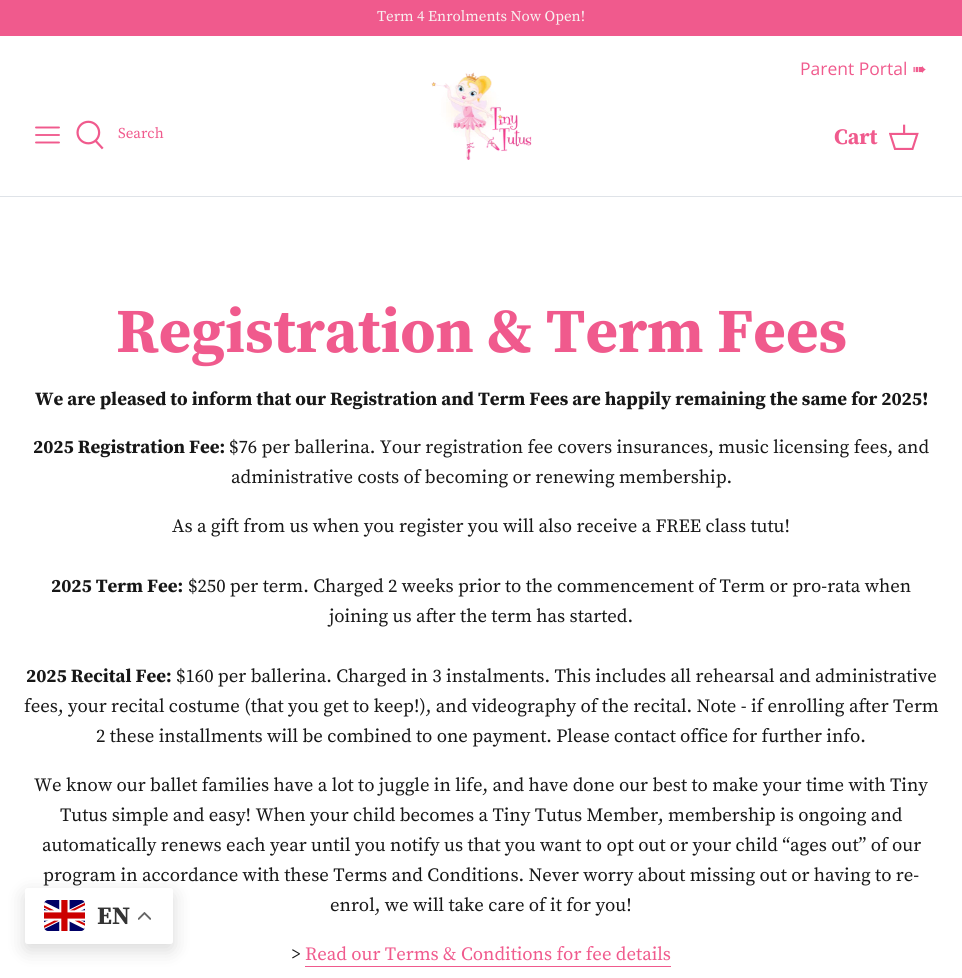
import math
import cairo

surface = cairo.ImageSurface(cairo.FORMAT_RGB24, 962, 978)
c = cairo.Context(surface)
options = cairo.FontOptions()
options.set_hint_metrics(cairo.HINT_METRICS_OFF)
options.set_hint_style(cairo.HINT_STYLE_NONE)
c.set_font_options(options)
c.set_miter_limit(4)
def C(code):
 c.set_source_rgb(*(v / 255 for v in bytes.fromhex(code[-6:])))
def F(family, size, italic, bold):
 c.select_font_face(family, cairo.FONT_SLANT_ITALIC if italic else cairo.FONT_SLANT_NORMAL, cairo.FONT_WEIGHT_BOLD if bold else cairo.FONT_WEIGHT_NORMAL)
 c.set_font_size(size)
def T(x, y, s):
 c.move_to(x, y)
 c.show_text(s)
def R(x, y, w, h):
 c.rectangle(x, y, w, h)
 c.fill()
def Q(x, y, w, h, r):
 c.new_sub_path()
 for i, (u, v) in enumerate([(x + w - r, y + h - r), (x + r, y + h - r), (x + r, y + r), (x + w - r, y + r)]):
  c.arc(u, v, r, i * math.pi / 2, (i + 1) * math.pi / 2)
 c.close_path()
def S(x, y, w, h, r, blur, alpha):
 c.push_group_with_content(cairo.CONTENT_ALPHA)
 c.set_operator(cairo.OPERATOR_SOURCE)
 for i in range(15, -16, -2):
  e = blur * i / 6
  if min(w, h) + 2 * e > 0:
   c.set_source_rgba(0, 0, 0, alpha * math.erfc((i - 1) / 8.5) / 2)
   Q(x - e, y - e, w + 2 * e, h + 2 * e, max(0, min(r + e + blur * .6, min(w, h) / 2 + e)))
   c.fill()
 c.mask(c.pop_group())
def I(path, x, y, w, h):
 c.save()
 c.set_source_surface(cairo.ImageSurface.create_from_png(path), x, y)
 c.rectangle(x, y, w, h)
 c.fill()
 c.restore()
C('ffffff')
c.paint()
C('f05a8d')
R(0,0,962,36)
F('Source Serif Pro',15,0,0)
C('f8f1f1')
T(377,21,'Term 4 Enrolments Now Open!')
C('dfe3e8')
R(0,196,962,1)
c.new_path()
c.move_to(36,135)
c.line_to(59,135)
c.move_to(36,127.5)
c.line_to(59,127.5)
c.move_to(36,142.5)
c.line_to(59,142.5)
C('f05a8d')
c.set_line_width(1.9)
c.set_line_cap(cairo.LINE_CAP_ROUND)
c.set_line_join(cairo.LINE_JOIN_ROUND)
c.stroke()
I('1.png',76,120,28,30)
T(118,138,'Search')
I('2.png',431,72,101,88)
F('Open Sans',17.5,0,0)
T(800,75,'Parent Portal')
F('DejaVu Sans',17.5,0,0)
T(912,75,'➠')
F('Source Serif Pro',22,0,1)
T(834,144,'Cart')
I('3.png',889,124,30,26)
F('Source Serif Pro',62.5,0,1)
T(116,352,'Registration & Term Fees')
F('Source Serif Pro',18.75,0,1)
C('171717')
T(35,405,'We are pleased to inform that our Registration and Term Fees are happily remaining the same for 2025!')
T(33,453,'2025 Registration Fee:')
F('Source Serif Pro',18.75,0,0)
T(229,453,'$76 per ballerina. Your registration fee covers insurances, music licensing fees, and')
T(231,483,'administrative costs of becoming or renewing membership.')
T(172,532,'As a gift from us when you register you will also receive a FREE class tutu!')
F('Source Serif Pro',18.75,0,1)
T(51,592,'2025 Term Fee:')
F('Source Serif Pro',18.75,0,0)
T(188,592,'$250 per term. Charged 2 weeks prior to the commencement of Term or pro-rata when')
T(329,622,'joining us after the term has started.')
F('Source Serif Pro',18.75,0,1)
T(26,682,'2025 Recital Fee:')
F('Source Serif Pro',18.75,0,0)
T(176,682,'$160 per ballerina. Charged in 3 instalments. This includes all rehearsal and administrative')
T(24,712,'fees, your recital costume (that you get to keep!), and videography of the recital. Note - if enrolling after Term')
T(96,742,'2 these installments will be combined to one payment. Please contact office for further info.')
T(34,791,'We know our ballet families have a lot to juggle in life, and have done our best to make your time with Tiny')
T(60,821,'Tutus simple and easy! When your child becomes a Tiny Tutus Member, membership is ongoing and')
T(42,851,'automatically renews each year until you notify us that you want to opt out or your child “ages out” of our')
T(43,881,'program in accordance with these Terms and Conditions. Never worry about missing out or having to re-')
T(330,911,'enrol, we will take care of it for you!')
T(291,960,'>')
C('f05a8d')
T(305,960,'Read our Terms & Conditions for fee details')
R(305,966,366,1)
C('000000')
S(25,894,148,56,2.5,9.5,.15)
C('ffffff')
Q(25,888,148,56,2.5)
c.fill()
I('4.png',44,900,41,31)
F('Source Serif Pro',25,0,1)
C('333333')
T(97,924,'EN')
I('5.png',138,912,13,8)
surface.write_to_png('o.png')
